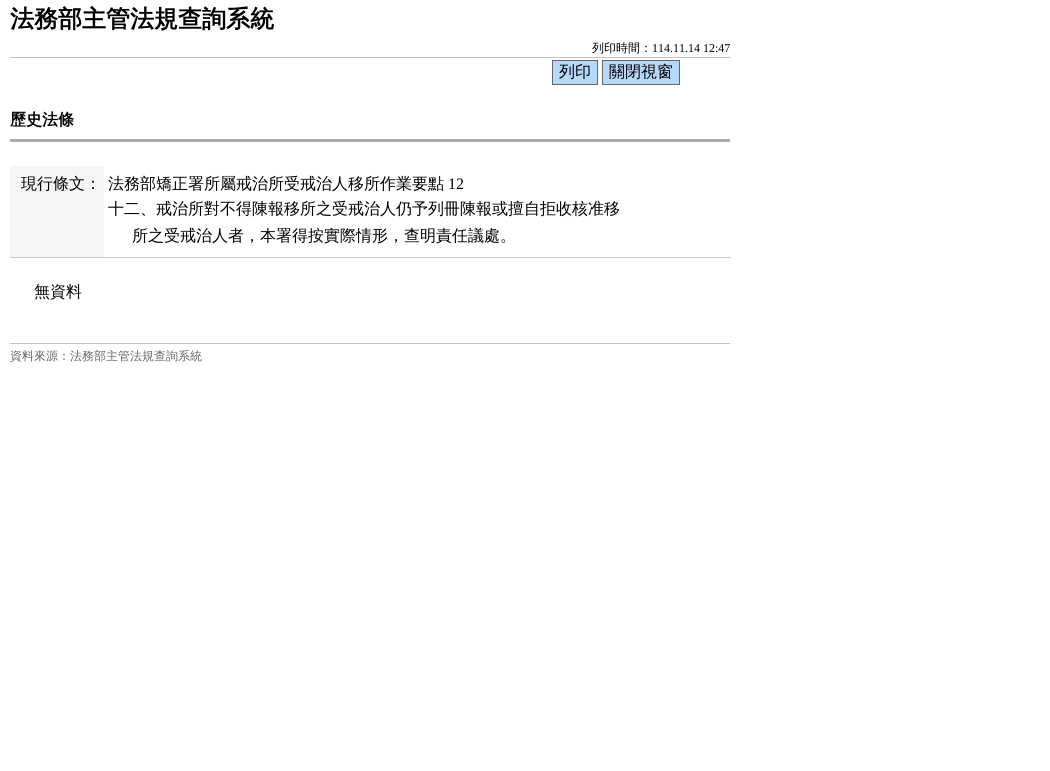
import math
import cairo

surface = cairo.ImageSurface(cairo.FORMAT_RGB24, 1050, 771)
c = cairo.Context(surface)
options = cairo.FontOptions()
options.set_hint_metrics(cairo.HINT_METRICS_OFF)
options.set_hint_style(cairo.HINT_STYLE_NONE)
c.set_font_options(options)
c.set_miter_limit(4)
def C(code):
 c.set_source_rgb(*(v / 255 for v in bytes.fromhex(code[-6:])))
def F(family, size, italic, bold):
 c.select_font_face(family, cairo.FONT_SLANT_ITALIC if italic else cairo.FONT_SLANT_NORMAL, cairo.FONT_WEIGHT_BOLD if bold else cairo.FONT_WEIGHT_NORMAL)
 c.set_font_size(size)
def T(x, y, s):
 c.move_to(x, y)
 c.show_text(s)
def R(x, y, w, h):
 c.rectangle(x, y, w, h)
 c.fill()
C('ffffff')
c.paint()
C('c0c0c0')
R(10,57,720,1)
F('WenQuanYi Zen Hei',24,0,1)
C('000000')
T(10,27,'法務部主管法規查詢系統')
F('WenQuanYi Zen Hei Medium',12,0,0)
T(592,52,'列印時間：')
F('Liberation Serif',12,0,0)
T(652,52,'114.11.14 12:47')
C('b5d8fb')
c.rectangle(552.5,60.5,45,24)
c.fill_preserve()
C('666666')
c.set_line_width(1)
c.stroke()
F('WenQuanYi Zen Hei Medium',16,0,0)
C('000000')
T(559,77,'列印')
C('b5d8fb')
c.rectangle(602.5,60.5,77,24)
c.fill_preserve()
C('666666')
c.stroke()
C('000000')
T(609,77,'關閉視窗')
C('aaaaaa')
R(10,139,720,3)
F('WenQuanYi Zen Hei',16,0,1)
C('000000')
T(10,125,'歷史法條')
C('f5f5f5')
R(10,166,94,91)
F('WenQuanYi Zen Hei Medium',16,0,0)
C('000000')
T(21,189,'現行條文：')
C('cccccc')
R(10,257,721,1)
C('000000')
T(108,189,'法務部矯正署所屬戒治所受戒治人移所作業要點')
F('Liberation Serif',16,0,0)
T(448,189,'12')
F('WenQuanYi Zen Hei Medium',16,0,0)
T(108,214,'十二、戒治所對不得陳報移所之受戒治人仍予列冊陳報或擅自拒收核准移')
T(132,241,'所之受戒治人者，本署得按實際情形，查明責任議處。')
T(34,297,'無資料')
C('c0c0c0')
R(10,343,720,1)
F('WenQuanYi Zen Hei Medium',12,0,0)
C('666666')
T(10,360,'資料來源：法務部主管法規查詢系統')
surface.write_to_png('o.png')
